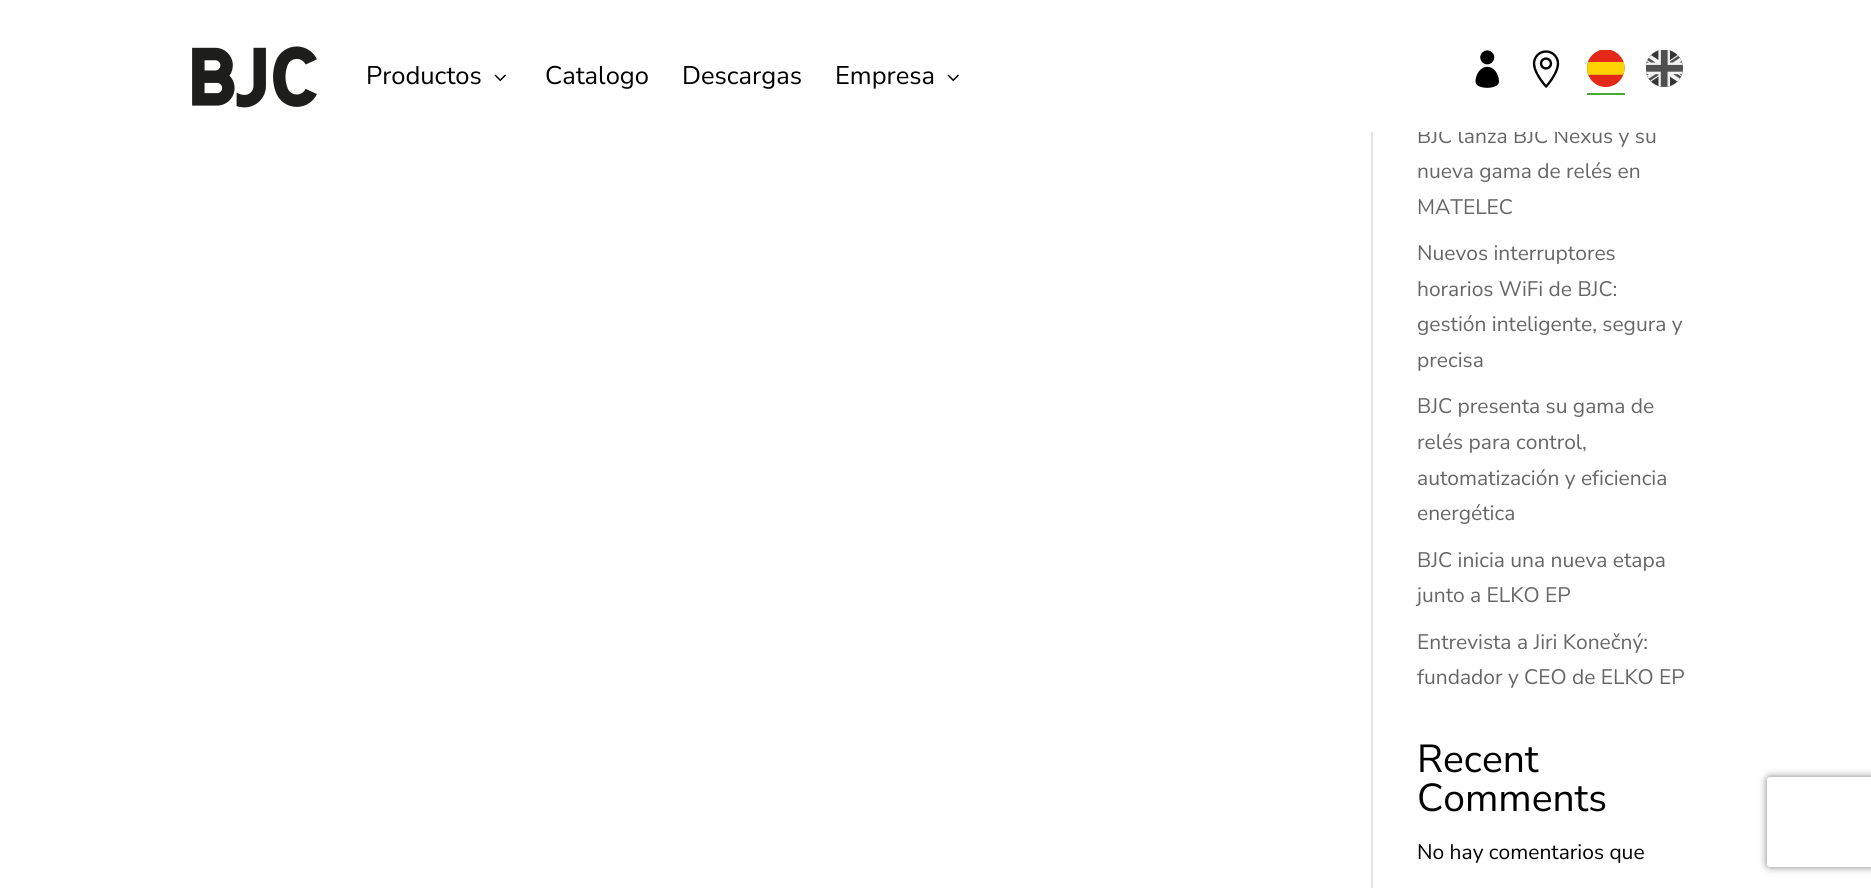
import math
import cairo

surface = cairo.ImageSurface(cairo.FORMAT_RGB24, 1871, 888)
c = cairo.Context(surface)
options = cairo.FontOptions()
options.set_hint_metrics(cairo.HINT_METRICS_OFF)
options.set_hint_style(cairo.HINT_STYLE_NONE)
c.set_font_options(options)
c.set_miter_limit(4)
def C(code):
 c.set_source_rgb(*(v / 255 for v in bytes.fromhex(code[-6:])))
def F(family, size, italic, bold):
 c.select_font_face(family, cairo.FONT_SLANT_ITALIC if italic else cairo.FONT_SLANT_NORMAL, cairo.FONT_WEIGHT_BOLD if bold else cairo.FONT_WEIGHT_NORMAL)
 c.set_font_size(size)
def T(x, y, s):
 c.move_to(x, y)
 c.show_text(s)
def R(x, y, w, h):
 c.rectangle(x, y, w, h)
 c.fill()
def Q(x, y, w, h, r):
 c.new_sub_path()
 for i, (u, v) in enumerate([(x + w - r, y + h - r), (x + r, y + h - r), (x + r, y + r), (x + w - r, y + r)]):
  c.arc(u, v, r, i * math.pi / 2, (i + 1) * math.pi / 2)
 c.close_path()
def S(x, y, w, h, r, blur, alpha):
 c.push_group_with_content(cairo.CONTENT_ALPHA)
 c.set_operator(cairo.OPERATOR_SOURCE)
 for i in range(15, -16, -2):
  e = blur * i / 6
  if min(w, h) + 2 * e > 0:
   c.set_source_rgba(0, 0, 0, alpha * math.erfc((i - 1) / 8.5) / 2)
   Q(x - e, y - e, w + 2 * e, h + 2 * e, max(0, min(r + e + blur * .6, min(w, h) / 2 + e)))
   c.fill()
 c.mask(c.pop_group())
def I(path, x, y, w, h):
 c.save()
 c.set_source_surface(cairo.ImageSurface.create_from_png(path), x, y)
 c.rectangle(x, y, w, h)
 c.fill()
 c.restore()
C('ffffff')
c.paint()
F('Nunito Sans',21,0,0)
C('666666')
T(1417,143,'BJC lanza BJC Nexus y su')
C('ffffff')
R(1418,128,150,4)
I('1.png',192,46,125,62)
F('Nunito Sans',25.5,0,0)
C('000000')
T(366,84,'Productos')
I('2.png',494,74,12,7)
T(545,84,'Catalogo')
T(682,84,'Descargas')
T(835,84,'Empresa')
I('2.png',947,74,12,7)
I('3.png',1475,50,24,38)
I('4.png',1532,50,28,38)
I('5.png',1587,50,38,37)
C('45ab34')
R(1587,93,38,2)
I('6.png',1646,50,37,37)
C('e2e2e2')
R(1371,132,2,756)
F('Nunito Sans',21,0,0)
C('666666')
T(1417,178,'nueva gama de relés en')
T(1417,214,'MATELEC')
T(1417,260,'Nuevos interruptores')
T(1417,296,'horarios WiFi de BJC:')
T(1417,331,'gestión inteligente, segura y')
T(1417,367,'precisa')
T(1417,413,'BJC presenta su gama de')
T(1417,449,'relés para control,')
T(1417,485,'automatización y eficiencia')
T(1417,520,'energética')
T(1417,567,'BJC inicia una nueva etapa')
T(1417,602,'junto a ELKO EP')
T(1417,649,'Entrevista a Jiri Konečný:')
T(1417,684,'fundador y CEO de ELKO EP')
F('Nunito Sans',39,0,0)
C('000000')
T(1417,772,'Recent')
T(1417,811,'Comments')
F('Nunito Sans',21,0,0)
T(1417,859,'No hay comentarios que')
c.save()
c.set_fill_rule(cairo.FILL_RULE_EVEN_ODD)
c.new_path()
c.move_to(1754,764)
c.line_to(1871,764)
c.line_to(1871,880)
c.line_to(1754,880)
c.close_path()
c.move_to(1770,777)
c.line_to(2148,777)
c.curve_to(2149.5,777,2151,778.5,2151,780)
c.line_to(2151,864)
c.curve_to(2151,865.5,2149.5,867,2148,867)
c.line_to(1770,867)
c.curve_to(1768.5,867,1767,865.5,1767,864)
c.line_to(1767,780)
c.curve_to(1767,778.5,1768.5,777,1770,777)
c.close_path()
c.clip()
C('808080')
S(1767,777,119,90,3,4,1)
c.restore()
surface.write_to_png('o.png')
